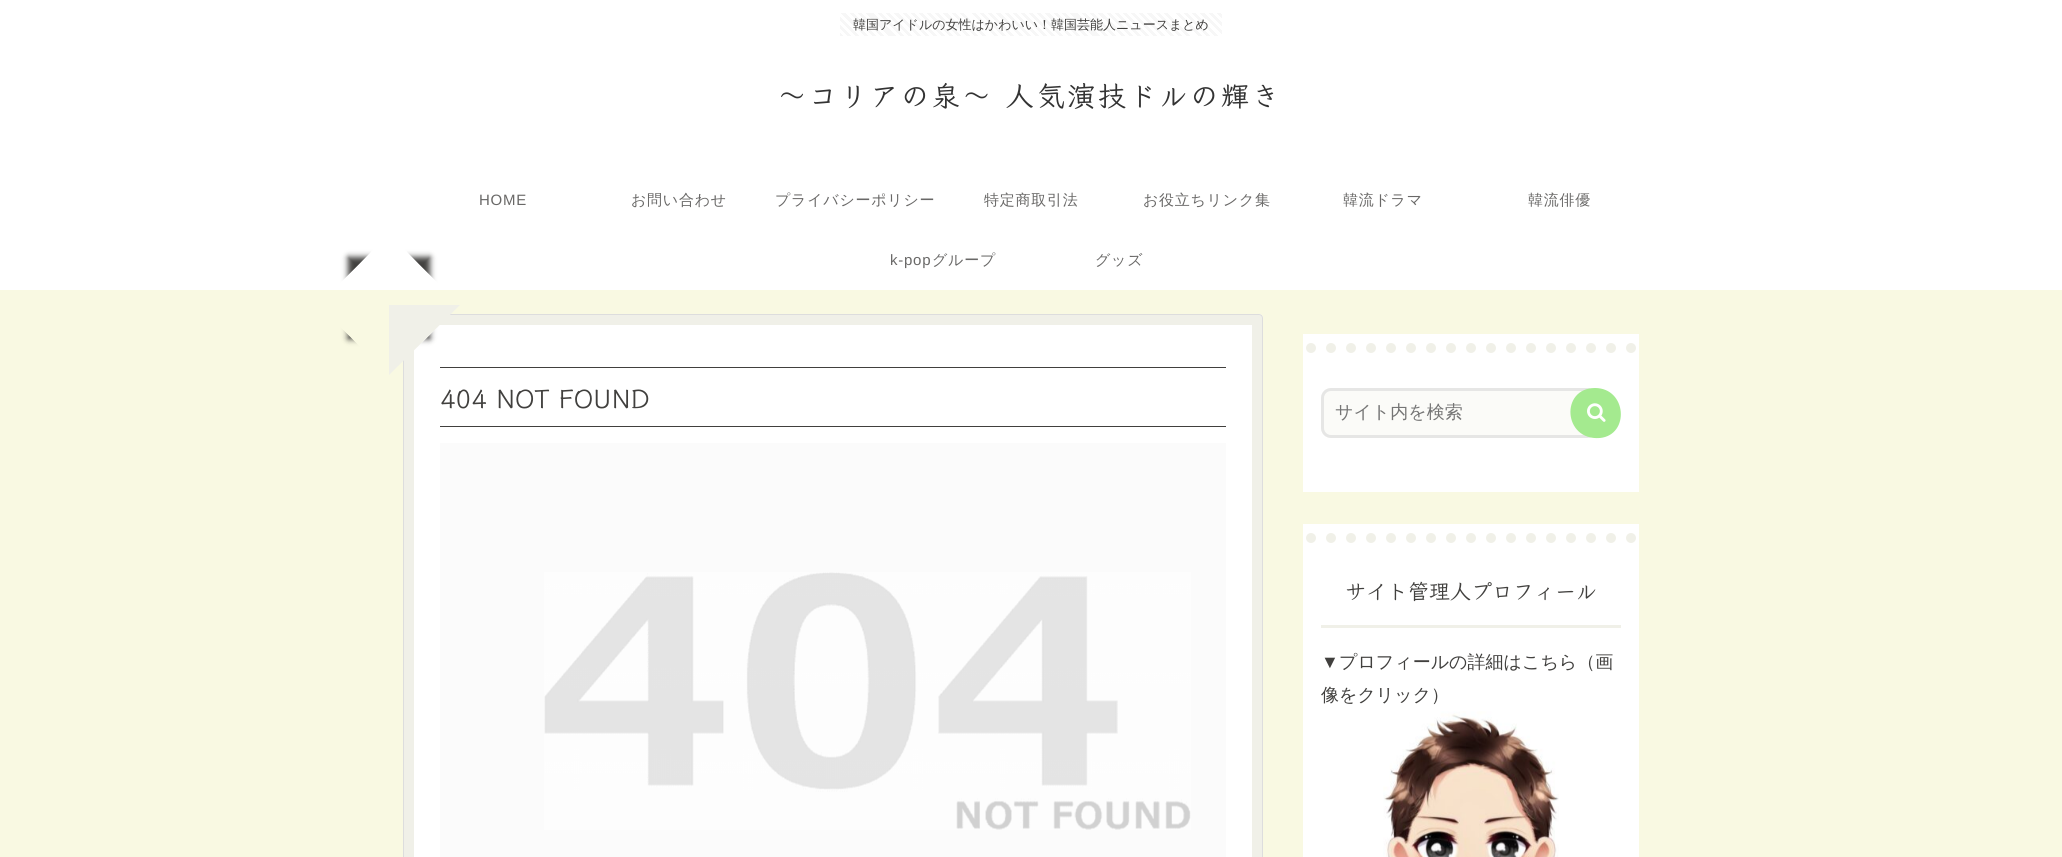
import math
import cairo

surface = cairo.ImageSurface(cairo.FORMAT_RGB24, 2062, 857)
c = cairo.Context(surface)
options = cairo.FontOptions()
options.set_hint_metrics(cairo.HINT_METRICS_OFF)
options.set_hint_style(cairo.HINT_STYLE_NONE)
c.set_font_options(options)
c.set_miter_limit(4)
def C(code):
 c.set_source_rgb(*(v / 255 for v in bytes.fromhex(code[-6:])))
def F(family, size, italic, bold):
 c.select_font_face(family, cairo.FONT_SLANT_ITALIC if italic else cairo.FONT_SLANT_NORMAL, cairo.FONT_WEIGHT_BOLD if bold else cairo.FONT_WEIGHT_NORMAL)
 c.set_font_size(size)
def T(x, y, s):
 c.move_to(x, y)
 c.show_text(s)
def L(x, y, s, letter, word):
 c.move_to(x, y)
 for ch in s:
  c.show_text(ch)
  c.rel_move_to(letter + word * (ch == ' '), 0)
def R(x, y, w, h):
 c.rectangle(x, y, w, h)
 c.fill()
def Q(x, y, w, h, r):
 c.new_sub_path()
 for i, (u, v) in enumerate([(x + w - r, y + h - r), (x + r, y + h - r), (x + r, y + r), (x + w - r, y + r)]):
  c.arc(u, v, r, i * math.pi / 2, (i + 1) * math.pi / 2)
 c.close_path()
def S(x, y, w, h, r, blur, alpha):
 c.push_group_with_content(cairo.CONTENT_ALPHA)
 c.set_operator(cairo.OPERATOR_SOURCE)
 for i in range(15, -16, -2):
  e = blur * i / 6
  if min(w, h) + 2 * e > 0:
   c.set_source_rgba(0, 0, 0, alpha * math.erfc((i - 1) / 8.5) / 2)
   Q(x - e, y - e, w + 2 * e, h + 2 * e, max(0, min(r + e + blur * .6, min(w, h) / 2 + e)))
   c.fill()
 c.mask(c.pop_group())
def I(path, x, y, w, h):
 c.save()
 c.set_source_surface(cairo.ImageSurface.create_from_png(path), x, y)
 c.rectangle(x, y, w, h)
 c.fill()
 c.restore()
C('f9f9e2')
c.paint()
C('ffffff')
R(0,0,2062,290)
gradient = cairo.LinearGradient(930,126,1133,-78)
gradient.add_color_stop_rgba(0,0.969,0.969,0.969,1)
gradient.add_color_stop_rgba(.01,0.969,0.969,0.969,1)
gradient.add_color_stop_rgba(.01,1,1,1,1)
gradient.add_color_stop_rgba(.02,1,1,1,1)
gradient.add_color_stop_rgba(.02,0.969,0.969,0.969,1)
gradient.add_color_stop_rgba(.03,0.969,0.969,0.969,1)
gradient.add_color_stop_rgba(.03,1,1,1,1)
gradient.add_color_stop_rgba(.04,1,1,1,1)
gradient.add_color_stop_rgba(.04,0.969,0.969,0.969,1)
gradient.add_color_stop_rgba(.05,0.969,0.969,0.969,1)
gradient.add_color_stop_rgba(.05,1,1,1,1)
gradient.add_color_stop_rgba(.06,1,1,1,1)
gradient.add_color_stop_rgba(.06,0.969,0.969,0.969,1)
gradient.add_color_stop_rgba(.07,0.969,0.969,0.969,1)
gradient.add_color_stop_rgba(.07,1,1,1,1)
gradient.add_color_stop_rgba(.08,1,1,1,1)
gradient.add_color_stop_rgba(.08,0.969,0.969,0.969,1)
gradient.add_color_stop_rgba(.09,0.969,0.969,0.969,1)
gradient.add_color_stop_rgba(.09,1,1,1,1)
gradient.add_color_stop_rgba(.1,1,1,1,1)
gradient.add_color_stop_rgba(.1,0.969,0.969,0.969,1)
gradient.add_color_stop_rgba(.11,0.969,0.969,0.969,1)
gradient.add_color_stop_rgba(.11,1,1,1,1)
gradient.add_color_stop_rgba(.12,1,1,1,1)
gradient.add_color_stop_rgba(.12,0.969,0.969,0.969,1)
gradient.add_color_stop_rgba(.14,0.969,0.969,0.969,1)
gradient.add_color_stop_rgba(.14,1,1,1,1)
gradient.add_color_stop_rgba(.15,1,1,1,1)
gradient.add_color_stop_rgba(.15,0.969,0.969,0.969,1)
gradient.add_color_stop_rgba(.16,0.969,0.969,0.969,1)
gradient.add_color_stop_rgba(.16,1,1,1,1)
gradient.add_color_stop_rgba(.17,1,1,1,1)
gradient.add_color_stop_rgba(.17,0.969,0.969,0.969,1)
gradient.add_color_stop_rgba(.18,0.969,0.969,0.969,1)
gradient.add_color_stop_rgba(.18,1,1,1,1)
gradient.add_color_stop_rgba(.19,1,1,1,1)
gradient.add_color_stop_rgba(.19,0.969,0.969,0.969,1)
gradient.add_color_stop_rgba(.2,0.969,0.969,0.969,1)
gradient.add_color_stop_rgba(.2,1,1,1,1)
gradient.add_color_stop_rgba(.21,1,1,1,1)
gradient.add_color_stop_rgba(.21,0.969,0.969,0.969,1)
gradient.add_color_stop_rgba(.22,0.969,0.969,0.969,1)
gradient.add_color_stop_rgba(.22,1,1,1,1)
gradient.add_color_stop_rgba(.23,1,1,1,1)
gradient.add_color_stop_rgba(.23,0.969,0.969,0.969,1)
gradient.add_color_stop_rgba(.24,0.969,0.969,0.969,1)
gradient.add_color_stop_rgba(.24,1,1,1,1)
gradient.add_color_stop_rgba(.25,1,1,1,1)
gradient.add_color_stop_rgba(.25,0.969,0.969,0.969,1)
gradient.add_color_stop_rgba(.26,0.969,0.969,0.969,1)
gradient.add_color_stop_rgba(.26,1,1,1,1)
gradient.add_color_stop_rgba(.27,1,1,1,1)
gradient.add_color_stop_rgba(.27,0.969,0.969,0.969,1)
gradient.add_color_stop_rgba(.28,0.969,0.969,0.969,1)
gradient.add_color_stop_rgba(.28,1,1,1,1)
gradient.add_color_stop_rgba(.29,1,1,1,1)
gradient.add_color_stop_rgba(.29,0.969,0.969,0.969,1)
gradient.add_color_stop_rgba(.3,0.969,0.969,0.969,1)
gradient.add_color_stop_rgba(.3,1,1,1,1)
gradient.add_color_stop_rgba(.31,1,1,1,1)
gradient.add_color_stop_rgba(.31,0.969,0.969,0.969,1)
gradient.add_color_stop_rgba(.32,0.969,0.969,0.969,1)
gradient.add_color_stop_rgba(.32,1,1,1,1)
gradient.add_color_stop_rgba(.33,1,1,1,1)
gradient.add_color_stop_rgba(.33,0.969,0.969,0.969,1)
gradient.add_color_stop_rgba(.34,0.969,0.969,0.969,1)
gradient.add_color_stop_rgba(.34,1,1,1,1)
gradient.add_color_stop_rgba(.35,1,1,1,1)
gradient.add_color_stop_rgba(.35,0.969,0.969,0.969,1)
gradient.add_color_stop_rgba(.36,0.969,0.969,0.969,1)
gradient.add_color_stop_rgba(.36,1,1,1,1)
gradient.add_color_stop_rgba(.38,1,1,1,1)
gradient.add_color_stop_rgba(.38,0.969,0.969,0.969,1)
gradient.add_color_stop_rgba(.39,0.969,0.969,0.969,1)
gradient.add_color_stop_rgba(.39,1,1,1,1)
gradient.add_color_stop_rgba(.4,1,1,1,1)
gradient.add_color_stop_rgba(.4,0.969,0.969,0.969,1)
gradient.add_color_stop_rgba(.41,0.969,0.969,0.969,1)
gradient.add_color_stop_rgba(.41,1,1,1,1)
gradient.add_color_stop_rgba(.42,1,1,1,1)
gradient.add_color_stop_rgba(.42,0.969,0.969,0.969,1)
gradient.add_color_stop_rgba(.43,0.969,0.969,0.969,1)
gradient.add_color_stop_rgba(.43,1,1,1,1)
gradient.add_color_stop_rgba(.44,1,1,1,1)
gradient.add_color_stop_rgba(.44,0.969,0.969,0.969,1)
gradient.add_color_stop_rgba(.45,0.969,0.969,0.969,1)
gradient.add_color_stop_rgba(.45,1,1,1,1)
gradient.add_color_stop_rgba(.46,1,1,1,1)
gradient.add_color_stop_rgba(.46,0.969,0.969,0.969,1)
gradient.add_color_stop_rgba(.47,0.969,0.969,0.969,1)
gradient.add_color_stop_rgba(.47,1,1,1,1)
gradient.add_color_stop_rgba(.48,1,1,1,1)
gradient.add_color_stop_rgba(.48,0.969,0.969,0.969,1)
gradient.add_color_stop_rgba(.49,0.969,0.969,0.969,1)
gradient.add_color_stop_rgba(.49,1,1,1,1)
gradient.add_color_stop_rgba(.5,1,1,1,1)
gradient.add_color_stop_rgba(.5,0.969,0.969,0.969,1)
gradient.add_color_stop_rgba(.51,0.969,0.969,0.969,1)
gradient.add_color_stop_rgba(.51,1,1,1,1)
gradient.add_color_stop_rgba(.52,1,1,1,1)
gradient.add_color_stop_rgba(.52,0.969,0.969,0.969,1)
gradient.add_color_stop_rgba(.53,0.969,0.969,0.969,1)
gradient.add_color_stop_rgba(.53,1,1,1,1)
gradient.add_color_stop_rgba(.54,1,1,1,1)
gradient.add_color_stop_rgba(.54,0.969,0.969,0.969,1)
gradient.add_color_stop_rgba(.55,0.969,0.969,0.969,1)
gradient.add_color_stop_rgba(.55,1,1,1,1)
gradient.add_color_stop_rgba(.56,1,1,1,1)
gradient.add_color_stop_rgba(.56,0.969,0.969,0.969,1)
gradient.add_color_stop_rgba(.57,0.969,0.969,0.969,1)
gradient.add_color_stop_rgba(.57,1,1,1,1)
gradient.add_color_stop_rgba(.58,1,1,1,1)
gradient.add_color_stop_rgba(.58,0.969,0.969,0.969,1)
gradient.add_color_stop_rgba(.59,0.969,0.969,0.969,1)
gradient.add_color_stop_rgba(.59,1,1,1,1)
gradient.add_color_stop_rgba(.6,1,1,1,1)
gradient.add_color_stop_rgba(.6,0.969,0.969,0.969,1)
gradient.add_color_stop_rgba(.61,0.969,0.969,0.969,1)
gradient.add_color_stop_rgba(.61,1,1,1,1)
gradient.add_color_stop_rgba(.62,1,1,1,1)
gradient.add_color_stop_rgba(.62,0.969,0.969,0.969,1)
gradient.add_color_stop_rgba(.64,0.969,0.969,0.969,1)
gradient.add_color_stop_rgba(.64,1,1,1,1)
gradient.add_color_stop_rgba(.65,1,1,1,1)
gradient.add_color_stop_rgba(.65,0.969,0.969,0.969,1)
gradient.add_color_stop_rgba(.66,0.969,0.969,0.969,1)
gradient.add_color_stop_rgba(.66,1,1,1,1)
gradient.add_color_stop_rgba(.67,1,1,1,1)
gradient.add_color_stop_rgba(.67,0.969,0.969,0.969,1)
gradient.add_color_stop_rgba(.68,0.969,0.969,0.969,1)
gradient.add_color_stop_rgba(.68,1,1,1,1)
gradient.add_color_stop_rgba(.69,1,1,1,1)
gradient.add_color_stop_rgba(.69,0.969,0.969,0.969,1)
gradient.add_color_stop_rgba(.7,0.969,0.969,0.969,1)
gradient.add_color_stop_rgba(.7,1,1,1,1)
gradient.add_color_stop_rgba(.71,1,1,1,1)
gradient.add_color_stop_rgba(.71,0.969,0.969,0.969,1)
gradient.add_color_stop_rgba(.72,0.969,0.969,0.969,1)
gradient.add_color_stop_rgba(.72,1,1,1,1)
gradient.add_color_stop_rgba(.73,1,1,1,1)
gradient.add_color_stop_rgba(.73,0.969,0.969,0.969,1)
gradient.add_color_stop_rgba(.74,0.969,0.969,0.969,1)
gradient.add_color_stop_rgba(.74,1,1,1,1)
gradient.add_color_stop_rgba(.75,1,1,1,1)
gradient.add_color_stop_rgba(.75,0.969,0.969,0.969,1)
gradient.add_color_stop_rgba(.76,0.969,0.969,0.969,1)
gradient.add_color_stop_rgba(.76,1,1,1,1)
gradient.add_color_stop_rgba(.77,1,1,1,1)
gradient.add_color_stop_rgba(.77,0.969,0.969,0.969,1)
gradient.add_color_stop_rgba(.78,0.969,0.969,0.969,1)
gradient.add_color_stop_rgba(.78,1,1,1,1)
gradient.add_color_stop_rgba(.79,1,1,1,1)
gradient.add_color_stop_rgba(.79,0.969,0.969,0.969,1)
gradient.add_color_stop_rgba(.8,0.969,0.969,0.969,1)
gradient.add_color_stop_rgba(.8,1,1,1,1)
gradient.add_color_stop_rgba(.81,1,1,1,1)
gradient.add_color_stop_rgba(.81,0.969,0.969,0.969,1)
gradient.add_color_stop_rgba(.82,0.969,0.969,0.969,1)
gradient.add_color_stop_rgba(.82,1,1,1,1)
gradient.add_color_stop_rgba(.83,1,1,1,1)
gradient.add_color_stop_rgba(.83,0.969,0.969,0.969,1)
gradient.add_color_stop_rgba(.84,0.969,0.969,0.969,1)
gradient.add_color_stop_rgba(.84,1,1,1,1)
gradient.add_color_stop_rgba(.85,1,1,1,1)
gradient.add_color_stop_rgba(.85,0.969,0.969,0.969,1)
gradient.add_color_stop_rgba(.86,0.969,0.969,0.969,1)
gradient.add_color_stop_rgba(.86,1,1,1,1)
gradient.add_color_stop_rgba(.88,1,1,1,1)
gradient.add_color_stop_rgba(.88,0.969,0.969,0.969,1)
gradient.add_color_stop_rgba(.89,0.969,0.969,0.969,1)
gradient.add_color_stop_rgba(.89,1,1,1,1)
gradient.add_color_stop_rgba(.9,1,1,1,1)
gradient.add_color_stop_rgba(.9,0.969,0.969,0.969,1)
gradient.add_color_stop_rgba(.91,0.969,0.969,0.969,1)
gradient.add_color_stop_rgba(.91,1,1,1,1)
gradient.add_color_stop_rgba(.92,1,1,1,1)
gradient.add_color_stop_rgba(.92,0.969,0.969,0.969,1)
gradient.add_color_stop_rgba(.93,0.969,0.969,0.969,1)
gradient.add_color_stop_rgba(.93,1,1,1,1)
gradient.add_color_stop_rgba(.94,1,1,1,1)
gradient.add_color_stop_rgba(.94,0.969,0.969,0.969,1)
gradient.add_color_stop_rgba(.95,0.969,0.969,0.969,1)
gradient.add_color_stop_rgba(.95,1,1,1,1)
gradient.add_color_stop_rgba(.96,1,1,1,1)
gradient.add_color_stop_rgba(.96,0.969,0.969,0.969,1)
gradient.add_color_stop_rgba(.97,0.969,0.969,0.969,1)
gradient.add_color_stop_rgba(.97,1,1,1,1)
gradient.add_color_stop_rgba(.98,1,1,1,1)
gradient.add_color_stop_rgba(.98,0.969,0.969,0.969,1)
gradient.add_color_stop_rgba(.99,0.969,0.969,0.969,1)
gradient.add_color_stop_rgba(.99,1,1,1,1)
gradient.add_color_stop_rgba(1,1,1,1,1)
c.set_source(gradient)
R(840,13,382,23)
F('WenQuanYi Zen Hei Medium',13,0,0)
C('41403e')
T(853,29,'韓国アイドルの女性はかわいい！韓国芸能人ニュースまとめ')
F('Klee One SemiBold',28,0,0)
C('333333')
L(778,106,'～コリアの泉～ 人気演技ドルの輝き',2.75,0)
F('Liberation Sans',15,0,0)
C('696867')
L(479,205,'HOME',.75,0)
F('WenQuanYi Zen Hei Medium',15,0,0)
L(631,205,'お問い合わせ',.75,0)
L(775,205,'プライバシーポリシー',.75,0)
L(984,205,'特定商取引法',.75,0)
L(1143,205,'お役立ちリンク集',.75,0)
L(1343,205,'韓流ドラマ',.75,0)
L(1528,205,'韓流俳優',.75,0)
F('Liberation Sans',15,0,0)
L(890,265,'k-pop',.75,0)
F('WenQuanYi Zen Hei Medium',15,0,0)
L(932,265,'グループ',.75,0)
L(1095,265,'グッズ',.75,0)
C('ffffff')
Q(403,314,860,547,4)
c.fill()
c.new_path()
c.move_to(409,320)
c.line_to(1257,320)
c.line_to(1257,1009)
c.line_to(409,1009)
c.close_path()
C('f0f0e8')
c.set_line_width(10)
c.stroke()
Q(403.5,314.5,859,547,3.5)
C('dddddd')
c.set_line_width(1)
c.stroke()
c.save()
c.set_fill_rule(cairo.FILL_RULE_EVEN_ODD)
c.new_path()
c.move_to(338,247)
c.line_to(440,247)
c.line_to(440,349)
c.line_to(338,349)
c.close_path()
c.move_to(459.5,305)
c.line_to(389,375.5)
c.line_to(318.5,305)
c.line_to(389,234)
c.close_path()
c.clip()
C('41403e')
S(348,257,82,82,0,3,1)
c.restore()
C('41403e')
R(440,367,786,1)
C('f0f0e8')
c.new_path()
c.move_to(460,305)
c.line_to(389,375)
c.line_to(389,305)
c.close_path()
c.fill()
C('41403e')
R(440,426,786,1)
F('Klee One SemiBold',26,0,0)
T(440,408,'404 NOT FOUND')
C('fbfbfb')
R(440,443,786,414)
I('1.png',544,572,647,258)
C('ffffff')
R(1303,334,336,158)
c.new_path()
c.move_to(1311,348)
c.line_to(1631,348)
C('f0f0e8')
c.set_line_width(10)
c.set_line_cap(cairo.LINE_CAP_ROUND)
c.set_dash([0,20])
c.stroke()
C('fbfbf8')
Q(1321,388,276,50,10)
c.fill()
Q(1322.5,389.5,273,47,8.5)
c.set_source_rgba(0.867,0.867,0.867,0.7)
c.set_line_width(3)
c.set_line_cap(cairo.LINE_CAP_BUTT)
c.set_dash([])
c.stroke()
F('WenQuanYi Zen Hei Medium',18,0,0)
C('757575')
T(1335,418,'サイト内を検索')
C('a4ea8f')
c.new_path()
c.move_to(1595,388)
c.curve_to(1627,388,1630,435,1600,438)
c.curve_to(1563,441,1560,388,1595,388)
c.close_path()
c.fill()
I('2.png',1587,403,19,19)
C('ffffff')
R(1303,524,336,333)
c.new_path()
c.move_to(1311,538)
c.line_to(1631,538)
C('f0f0e8')
c.set_line_width(10)
c.set_line_cap(cairo.LINE_CAP_ROUND)
c.set_dash([0,20])
c.stroke()
R(1321,625,300,3)
F('Klee One SemiBold',21,0,0)
C('41403e')
T(1345,599,'サイト管理人プロフィール')
F('Liberation Sans',18,0,0)
T(1321,668,'▼')
F('WenQuanYi Zen Hei Medium',18,0,0)
T(1339,668,'プロフィールの詳細はこちら（画')
T(1321,701,'像をクリック）')
I('3.png',1383,711,176,146)
surface.write_to_png('o.png')
